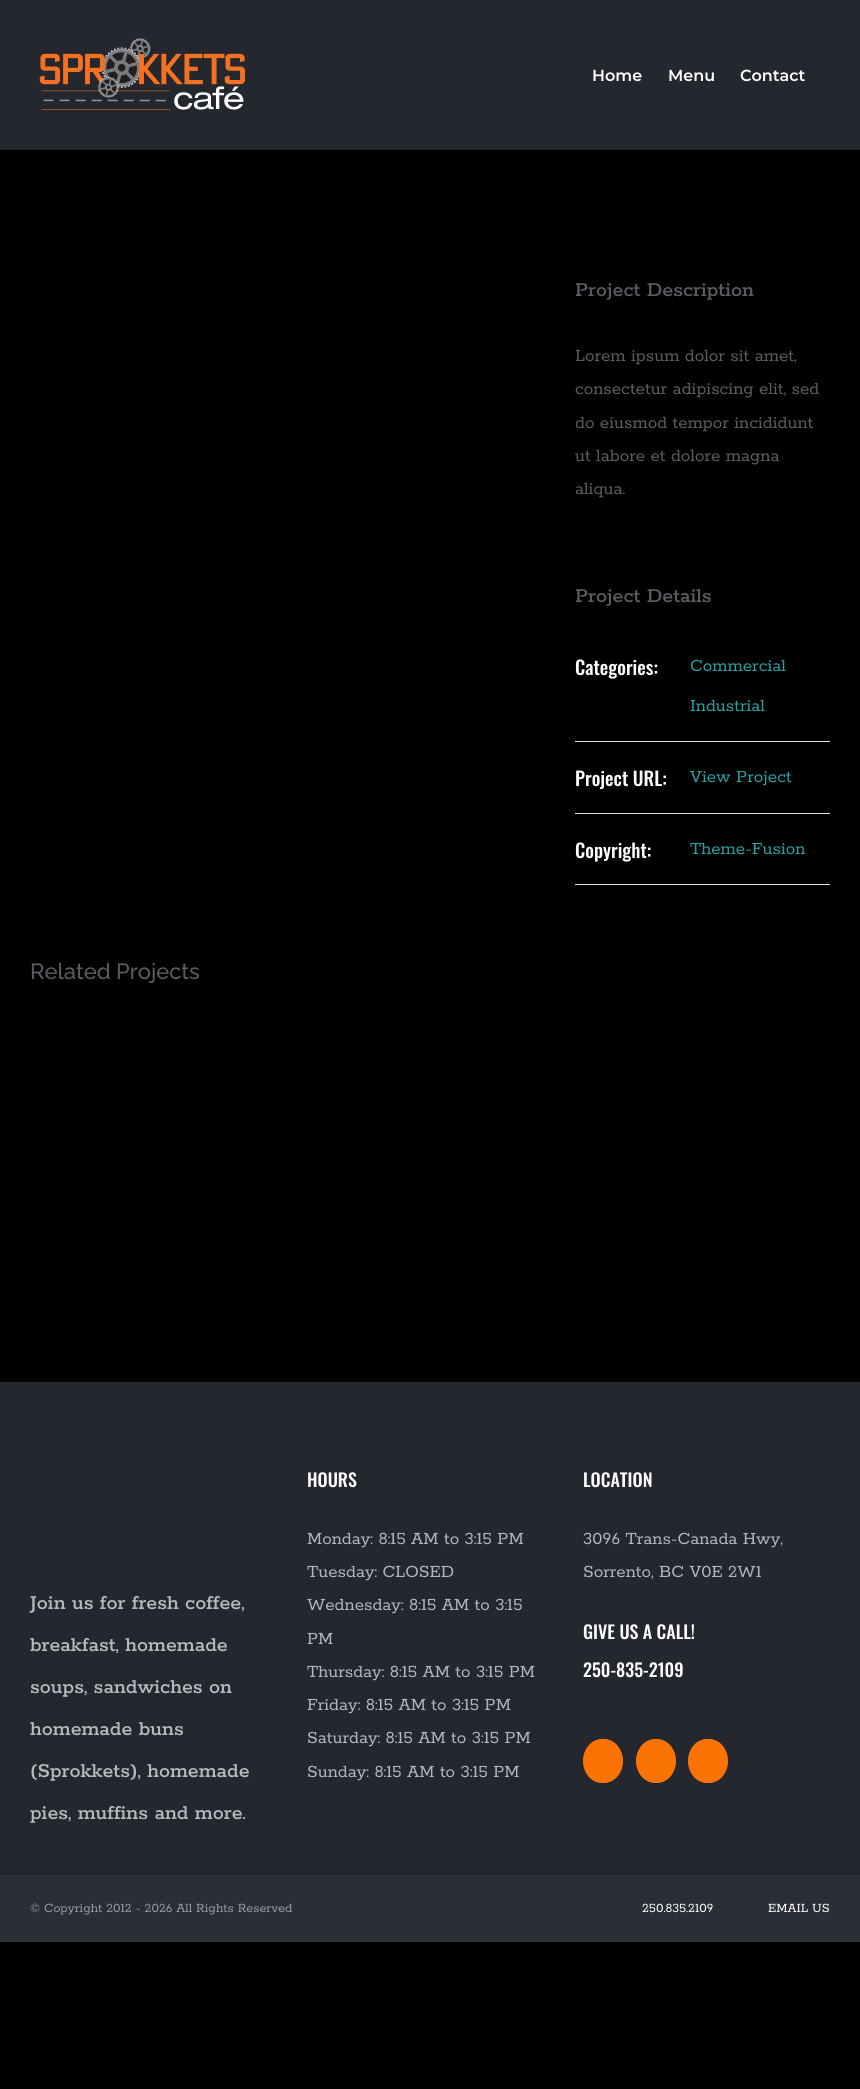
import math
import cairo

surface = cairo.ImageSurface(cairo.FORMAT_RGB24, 860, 2089)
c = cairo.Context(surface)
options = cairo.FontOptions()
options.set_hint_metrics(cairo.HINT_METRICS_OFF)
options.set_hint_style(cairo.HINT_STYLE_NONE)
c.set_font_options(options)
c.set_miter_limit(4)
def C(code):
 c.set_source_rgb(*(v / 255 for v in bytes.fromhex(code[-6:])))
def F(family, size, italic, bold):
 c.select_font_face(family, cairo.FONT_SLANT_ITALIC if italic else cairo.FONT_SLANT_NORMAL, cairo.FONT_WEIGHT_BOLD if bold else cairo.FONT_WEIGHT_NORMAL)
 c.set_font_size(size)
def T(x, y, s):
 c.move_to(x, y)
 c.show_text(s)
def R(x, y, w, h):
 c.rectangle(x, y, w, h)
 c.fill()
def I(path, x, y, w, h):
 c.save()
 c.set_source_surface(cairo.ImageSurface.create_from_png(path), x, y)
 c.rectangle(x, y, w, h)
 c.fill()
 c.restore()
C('000000')
c.paint()
C('24272d')
R(0,0,860,150)
I('1.png',39,38,206,72)
F('Montserrat Thin',16,0,0)
C('ffffff')
T(592,81,'Home')
T(668,81,'Menu')
T(740,81,'Contact')
F('Rokkitt SemiBold',22,0,0)
C('5a5d62')
T(575,296,'Project Description')
F('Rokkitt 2 SemiBold',19,0,0)
T(575,361,'Lorem ipsum dolor sit amet,')
T(575,394,'consectetur adipiscing elit, sed')
T(575,428,'do eiusmod tempor incididunt')
T(575,461,'ut labore et dolore magna')
T(575,494,'aliqua.')
F('Rokkitt SemiBold',22,0,0)
T(575,602,'Project Details')
C('e0dede')
R(575,741,255,1)
F('Oswald Medium',19,0,0)
C('ffffff')
T(575,675,'Categories:')
F('Rokkitt 2 SemiBold',19,0,0)
C('2ba0a3')
T(690,671,'Commercial')
T(690,711,'Industrial')
C('e0dede')
R(575,813,255,1)
F('Oswald Medium',19,0,0)
C('ffffff')
T(575,786,'Project URL:')
F('Rokkitt 2 SemiBold',19,0,0)
C('2ba0a3')
T(690,782,'View Project')
C('e0dede')
R(575,884,255,1)
F('Oswald Medium',19,0,0)
C('ffffff')
T(575,858,'Copyright:')
F('Rokkitt 2 SemiBold',19,0,0)
C('2ba0a3')
T(690,854,'Theme-Fusion')
F('Raleway Thin',22,0,0)
C('5a5d62')
T(30,979,'Related Projects')
C('24272d')
R(0,1382,860,493)
F('Rokkitt SemiBold',22,0,0)
C('b7b9bb')
T(30,1609,'Join us for fresh coffee,')
T(30,1651,'breakfast, homemade')
T(30,1693,'soups, sandwiches on')
T(30,1735,'homemade buns')
T(30,1777,'(Sprokkets), homemade')
T(30,1819,'pies, muffins and more.')
F('Oswald Medium',18,0,0)
C('ffffff')
T(307,1487,'HOURS')
F('Rokkitt 2 SemiBold',19,0,0)
C('afb8bc')
T(307,1544,'Monday: 8:15 AM to 3:15 PM')
T(307,1577,'Tuesday: CLOSED')
T(307,1610,'Wednesday: 8:15 AM to 3:15')
T(307,1644,'PM')
T(307,1677,'Thursday: 8:15 AM to 3:15 PM')
T(307,1710,'Friday: 8:15 AM to 3:15 PM')
T(307,1743,'Saturday: 8:15 AM to 3:15 PM')
T(307,1777,'Sunday: 8:15 AM to 3:15 PM')
F('Oswald Medium',18,0,0)
C('ffffff')
T(583,1487,'LOCATION')
F('Rokkitt 2 SemiBold',19,0,0)
C('afb8bc')
T(583,1544,'3096 Trans-Canada Hwy,')
T(583,1577,'Sorrento, BC V0E 2W1')
F('Oswald Medium',18,0,0)
C('ffffff')
T(583,1639,'GIVE US A CALL!')
T(583,1677,'250-835-2109')
C('fc7305')
c.new_path()
c.move_to(603,1739)
c.curve_to(614,1739,623,1749,623,1761)
c.curve_to(623,1773,614,1783,603,1783)
c.curve_to(592,1783,583,1773,583,1761)
c.curve_to(583,1749,592,1739,603,1739)
c.close_path()
c.fill()
c.new_path()
c.move_to(603,1739.5)
c.curve_to(628.5,1739.5,628.5,1782.5,603,1782.5)
c.curve_to(577.5,1782.5,577.5,1739.5,603,1739.5)
c.close_path()
c.set_line_width(1)
c.stroke()
c.new_path()
c.move_to(656,1739)
c.curve_to(667,1739,676,1749,676,1761)
c.curve_to(676,1773,667,1783,656,1783)
c.curve_to(645,1783,636,1773,636,1761)
c.curve_to(636,1749,645,1739,656,1739)
c.close_path()
c.fill()
c.new_path()
c.move_to(656,1739.5)
c.curve_to(681.5,1739.5,681.5,1782.5,656,1782.5)
c.curve_to(630.5,1782.5,630.5,1739.5,656,1739.5)
c.close_path()
c.stroke()
c.new_path()
c.move_to(708,1739)
c.curve_to(719,1739,728,1749,728,1761)
c.curve_to(728,1773,719,1783,708,1783)
c.curve_to(697,1783,688,1773,688,1761)
c.curve_to(688,1749,697,1739,708,1739)
c.close_path()
c.fill()
c.new_path()
c.move_to(708,1739.5)
c.curve_to(733.5,1739.5,733.5,1782.5,708,1782.5)
c.curve_to(682.5,1782.5,682.5,1739.5,708,1739.5)
c.close_path()
c.stroke()
C('2b2e35')
R(0,1875,860,67)
F('Rokkitt 2 SemiBold',14,0,0)
C('959da0')
T(30,1912,'© Copyright 2012 - 2026 All Rights Reserved')
C('ffffff')
T(642,1912,'250.835.2109')
T(768,1912,'EMAIL US')
surface.write_to_png('o.png')
